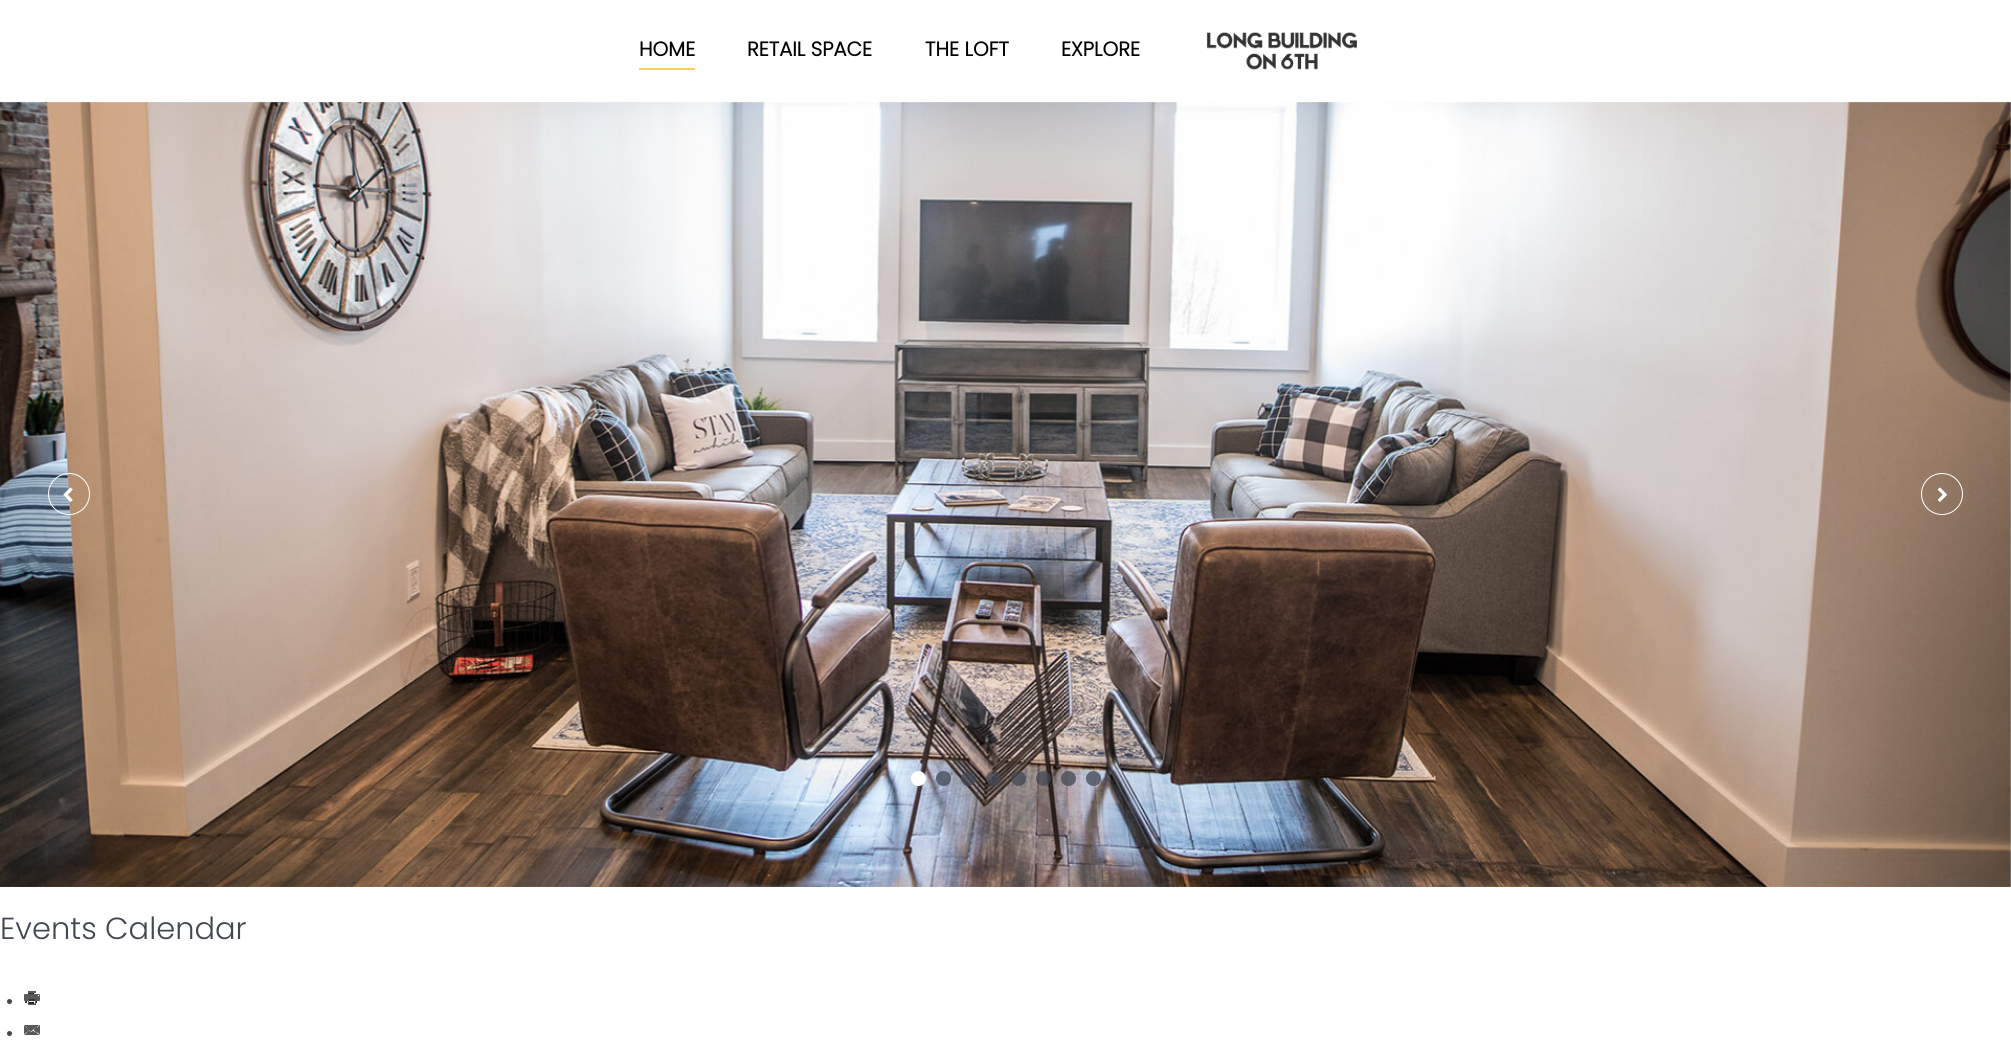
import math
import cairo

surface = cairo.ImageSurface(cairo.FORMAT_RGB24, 2011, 1043)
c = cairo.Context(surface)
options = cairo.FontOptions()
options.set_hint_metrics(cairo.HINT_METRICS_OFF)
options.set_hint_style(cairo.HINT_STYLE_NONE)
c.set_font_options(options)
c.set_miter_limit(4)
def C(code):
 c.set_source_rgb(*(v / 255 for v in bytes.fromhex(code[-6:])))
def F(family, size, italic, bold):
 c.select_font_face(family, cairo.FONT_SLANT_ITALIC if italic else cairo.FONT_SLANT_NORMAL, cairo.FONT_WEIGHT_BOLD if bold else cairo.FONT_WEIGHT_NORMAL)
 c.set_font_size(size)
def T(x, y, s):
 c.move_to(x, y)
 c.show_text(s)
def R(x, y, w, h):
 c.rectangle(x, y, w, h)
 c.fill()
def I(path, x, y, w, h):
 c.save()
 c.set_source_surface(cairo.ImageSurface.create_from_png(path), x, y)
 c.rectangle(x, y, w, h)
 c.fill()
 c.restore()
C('ffffff')
c.paint()
C('fad155')
R(639,68,56,2)
F('Poppins',20,0,1)
C('000000')
T(639,56,'HOME')
T(747,56,'RETAIL SPACE')
T(925,56,'THE LOFT')
T(1061,56,'EXPLORE')
I('1.png',1207,32,150,38)
I('2.png',0,102,2011,785)
c.arc(69,494,20.5,0,2 * math.pi)
C('ffffff')
c.set_line_width(1)
c.stroke()
I('3.png',63,487,10,15)
c.arc(1942,494,20.5,0,2 * math.pi)
c.stroke()
I('4.png',1937,487,10,15)
c.arc(918.5,778.5,7.5,0,2 * math.pi)
c.fill()
c.set_source_rgba(0.259,0.278,0.325,0.75)
c.arc(943.5,778.5,7.5,0,2 * math.pi)
c.fill()
c.arc(968.5,778.5,7.5,0,2 * math.pi)
c.fill()
c.arc(993.5,778.5,7.5,0,2 * math.pi)
c.fill()
c.arc(1018.5,778.5,7.5,0,2 * math.pi)
c.fill()
c.arc(1043.5,778.5,7.5,0,2 * math.pi)
c.fill()
c.arc(1068.5,778.5,7.5,0,2 * math.pi)
c.fill()
c.arc(1093.5,778.5,7.5,0,2 * math.pi)
c.fill()
F('Poppins Light',30.5,0,0)
C('424753')
T(0,939,'Events Calendar')
c.new_path()
c.arc(9.5,1001.5,2.5,0,2 * math.pi)
c.fill()
I('5.png',25,993,12,11)
I('6.png',24,991,16,14)
c.arc(9.5,1033.5,2.5,0,2 * math.pi)
c.fill()
I('7.png',25,1025,12,10)
I('8.png',24,1025,16,10)
surface.write_to_png('o.png')
